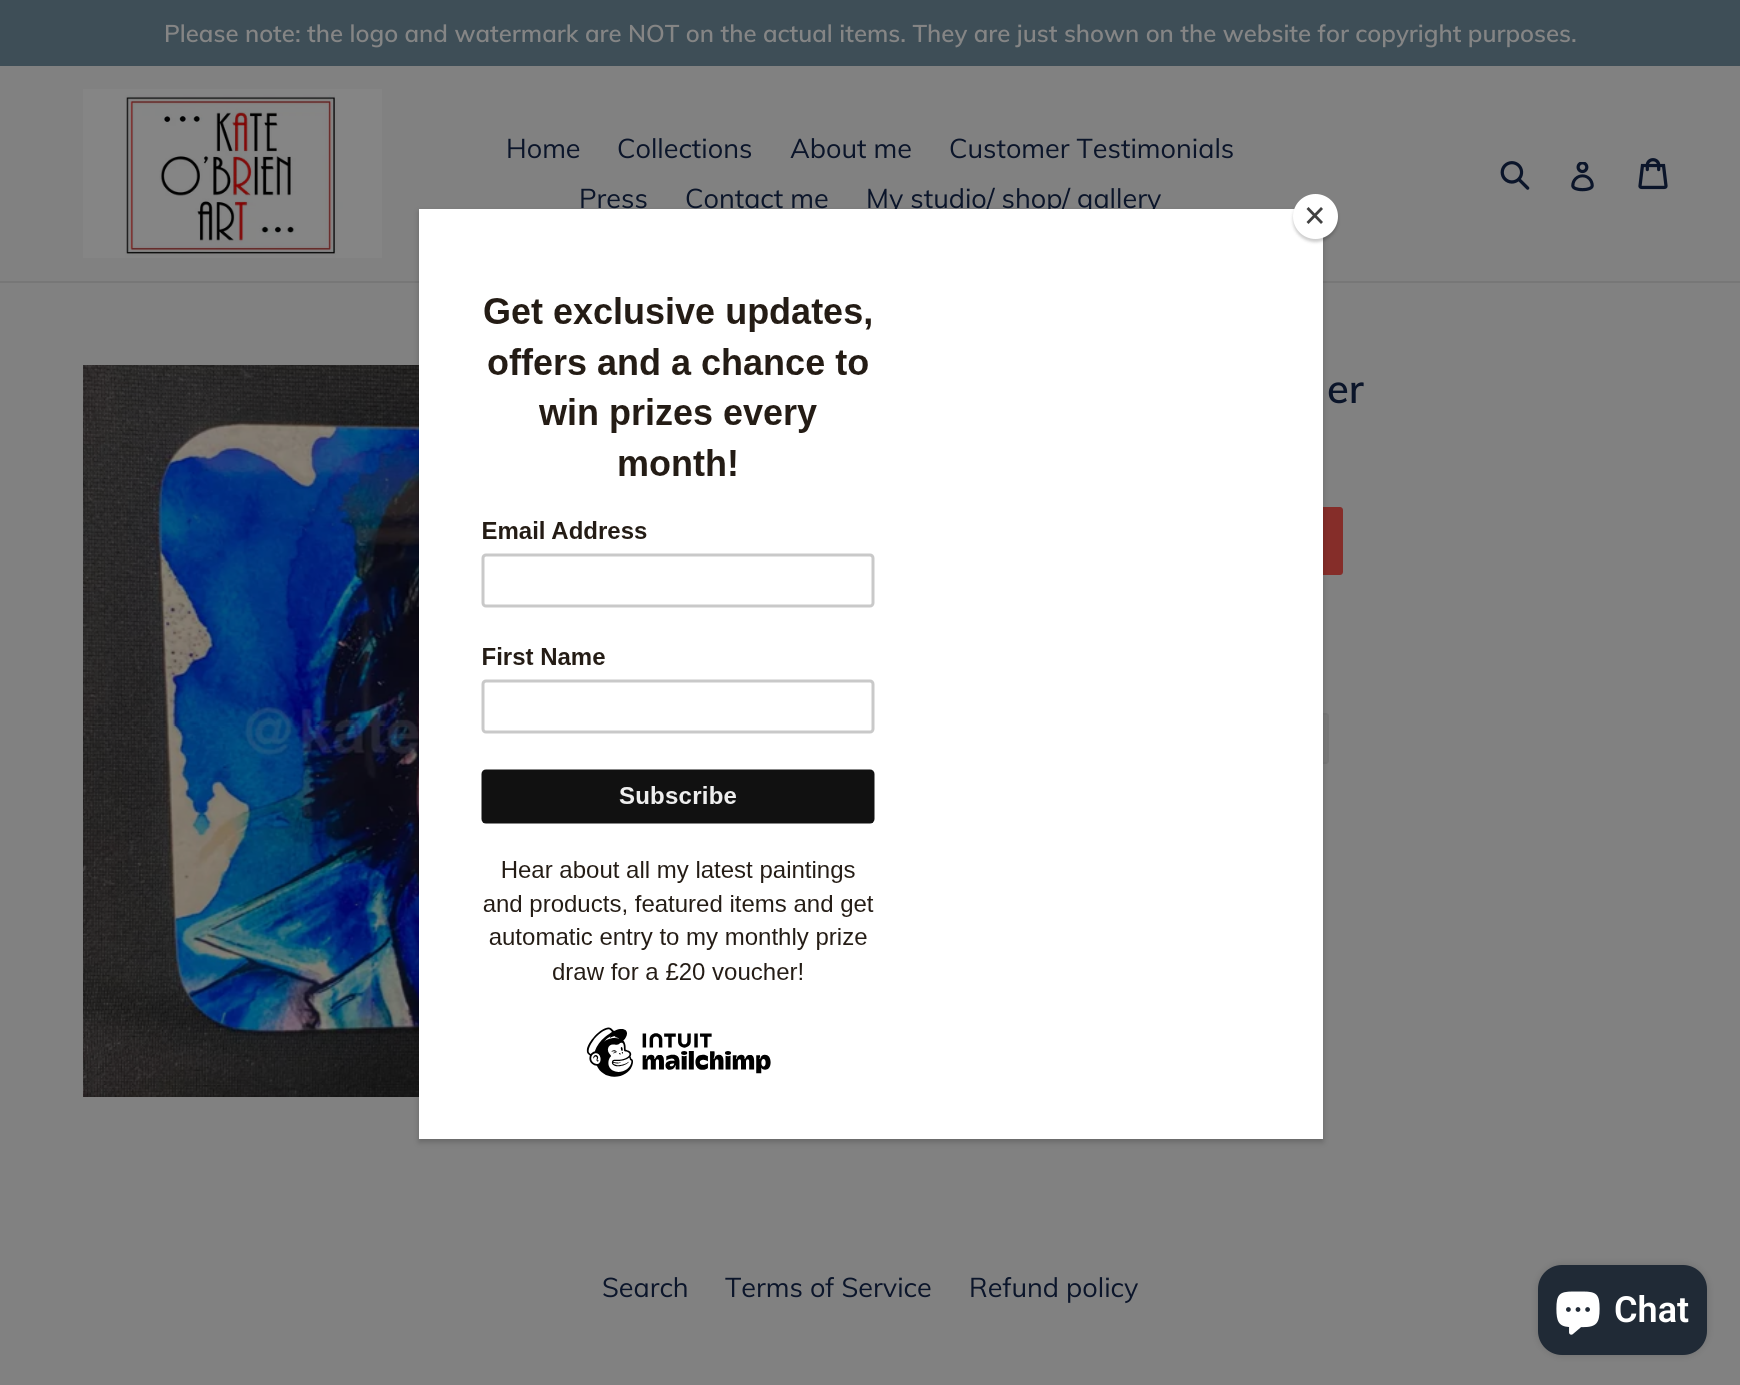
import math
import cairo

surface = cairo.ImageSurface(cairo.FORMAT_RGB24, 1740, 1385)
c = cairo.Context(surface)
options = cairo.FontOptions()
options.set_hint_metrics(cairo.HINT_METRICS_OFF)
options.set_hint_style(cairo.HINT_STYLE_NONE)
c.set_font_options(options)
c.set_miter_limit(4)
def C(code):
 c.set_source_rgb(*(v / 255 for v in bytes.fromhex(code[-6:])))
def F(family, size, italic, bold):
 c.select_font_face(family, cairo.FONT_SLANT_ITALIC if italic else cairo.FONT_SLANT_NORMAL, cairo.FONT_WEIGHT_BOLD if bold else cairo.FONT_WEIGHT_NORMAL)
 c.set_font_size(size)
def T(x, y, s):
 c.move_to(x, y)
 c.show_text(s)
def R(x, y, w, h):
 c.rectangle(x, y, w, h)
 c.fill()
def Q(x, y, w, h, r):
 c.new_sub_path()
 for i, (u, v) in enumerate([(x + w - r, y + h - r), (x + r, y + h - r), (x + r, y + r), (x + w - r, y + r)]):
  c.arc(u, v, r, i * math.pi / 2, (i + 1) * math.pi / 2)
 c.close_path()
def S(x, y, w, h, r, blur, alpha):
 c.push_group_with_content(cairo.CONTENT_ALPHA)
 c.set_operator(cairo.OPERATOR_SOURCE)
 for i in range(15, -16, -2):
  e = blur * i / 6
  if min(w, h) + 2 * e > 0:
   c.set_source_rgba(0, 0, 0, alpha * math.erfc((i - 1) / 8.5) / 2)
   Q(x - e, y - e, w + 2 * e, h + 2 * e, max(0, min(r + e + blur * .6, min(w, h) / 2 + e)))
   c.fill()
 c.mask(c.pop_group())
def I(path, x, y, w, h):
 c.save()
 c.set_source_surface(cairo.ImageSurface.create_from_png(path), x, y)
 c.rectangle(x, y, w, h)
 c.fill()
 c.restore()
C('818181')
c.paint()
C('3e4e57')
R(0,0,1740,66)
F('Muli SemiBold',24,0,0)
C('858585')
T(164,42,'Please note: the logo and watermark are NOT on the actual items. They are just shown on the website for copyright purposes.')
C('777777')
R(0,281,1740,2)
I('1.png',83,89,299,169)
F('Muli',27,0,0)
C('0b152a')
T(506,158,'Home')
T(617,158,'Collections')
T(790,158,'About me')
T(949,158,'Customer Testimonials')
T(579,208,'Press')
T(685,208,'Contact me')
T(866,208,'My studio/ shop/ gallery')
I('2.png',1500,161,30,29)
I('3.png',1571,162,23,30)
I('4.png',1638,158,30,32)
I('6.png',83,365,336,732)
C('852d29')
Q(893,507,450,68,3)
c.fill()
C('7a7a7a')
Q(1201,714,127,49,2)
c.fill_preserve()
C('777777')
c.stroke()
C('000000')
S(419,212,904,930,0,3,.2)
I('5.png',419,209,904,930)
S(1293,197,45,45,22.5,1.5,.2)
C('ffffff')
c.arc(1315.5,216.5,22.5,0,2 * math.pi)
c.fill()
C('414141')
c.new_path()
c.move_to(1321,207)
c.line_to(1323,209)
c.line_to(1308.5,224)
c.line_to(1306.5,222)
c.close_path()
c.fill()
c.new_path()
c.move_to(1306.5,209)
c.line_to(1308.5,207)
c.line_to(1323,222)
c.line_to(1321,224)
c.close_path()
c.fill()
F('Muli SemiBold',40,0,0)
C('0b152a')
T(1327,403,'er')
F('Muli',27,0,0)
T(602,1297,'Search')
T(725,1297,'Terms of Service')
T(969,1297,'Refund policy')
C('000000')
S(1538,1265,169,90,24,4,.15)
C('202a36')
Q(1538,1265,169,90,24)
c.fill()
I('7.png',1556,1291,44,44)
F('Roboto SemiBold',36,0,0)
C('ffffff')
T(1614,1322,'Chat')
surface.write_to_png('o.png')
